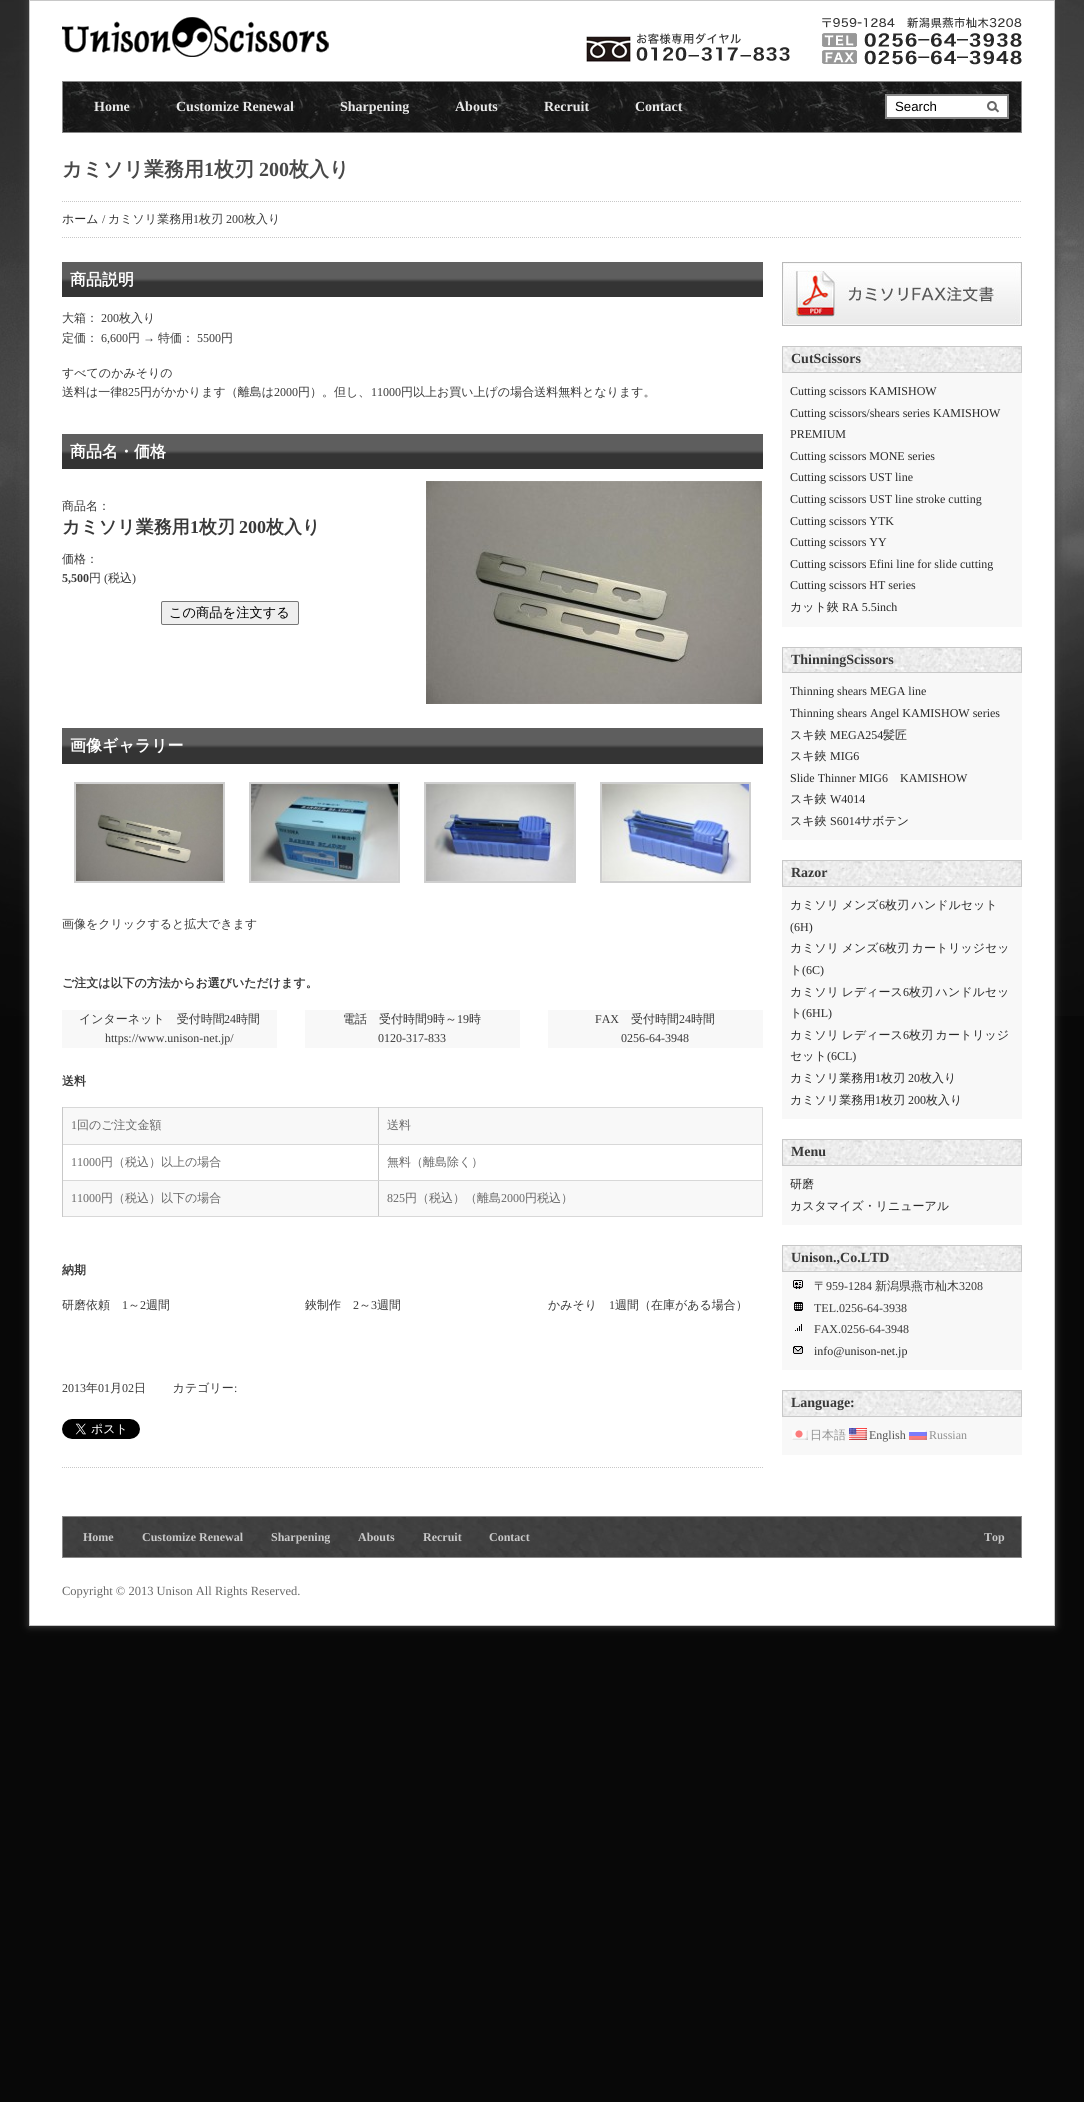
import math
import cairo

surface = cairo.ImageSurface(cairo.FORMAT_RGB24, 1084, 2102)
c = cairo.Context(surface)
options = cairo.FontOptions()
options.set_hint_metrics(cairo.HINT_METRICS_OFF)
options.set_hint_style(cairo.HINT_STYLE_NONE)
c.set_font_options(options)
c.set_miter_limit(4)
def C(code):
 c.set_source_rgb(*(v / 255 for v in bytes.fromhex(code[-6:])))
def F(family, size, italic, bold):
 c.select_font_face(family, cairo.FONT_SLANT_ITALIC if italic else cairo.FONT_SLANT_NORMAL, cairo.FONT_WEIGHT_BOLD if bold else cairo.FONT_WEIGHT_NORMAL)
 c.set_font_size(size)
def T(x, y, s):
 c.move_to(x, y)
 c.show_text(s)
def L(x, y, s, letter, word):
 c.move_to(x, y)
 for ch in s:
  c.show_text(ch)
  c.rel_move_to(letter + word * (ch == ' '), 0)
def R(x, y, w, h):
 c.rectangle(x, y, w, h)
 c.fill()
def Q(x, y, w, h, r):
 c.new_sub_path()
 for i, (u, v) in enumerate([(x + w - r, y + h - r), (x + r, y + h - r), (x + r, y + r), (x + w - r, y + r)]):
  c.arc(u, v, r, i * math.pi / 2, (i + 1) * math.pi / 2)
 c.close_path()
def S(x, y, w, h, r, blur, alpha):
 c.push_group_with_content(cairo.CONTENT_ALPHA)
 c.set_operator(cairo.OPERATOR_SOURCE)
 for i in range(15, -16, -2):
  e = blur * i / 6
  if min(w, h) + 2 * e > 0:
   c.set_source_rgba(0, 0, 0, alpha * math.erfc((i - 1) / 8.5) / 2)
   Q(x - e, y - e, w + 2 * e, h + 2 * e, max(0, min(r + e + blur * .6, min(w, h) / 2 + e)))
   c.fill()
 c.mask(c.pop_group())
def I(path, x, y, w, h):
 c.save()
 c.set_source_surface(cairo.ImageSurface.create_from_png(path), x, y)
 c.rectangle(x, y, w, h)
 c.fill()
 c.restore()
C('080808')
c.paint()
I('1.png',0,0,1084,1016)
C('484848')
S(29,0,1026,1626,0,4,1)
C('ffffff')
c.rectangle(29.5,.5,1025,1625)
c.fill_preserve()
C('c8c8c8')
c.set_line_width(1)
c.stroke()
I('2.png',62,17,267,40)
I('3.png',586,17,436,48)
I('4.png',63,82,958,50)
c.rectangle(62.5,81.5,959,51)
C('888888')
c.stroke()
F('Liberation Serif',14,0,1)
C('e8e8e8')
T(94,111,'Home')
T(176,111,'Customize Renewal')
T(340,111,'Sharpening')
T(455,111,'Abouts')
T(544,111,'Recruit')
T(635,111,'Contact')
C('ffffff')
R(887,96,120,21)
I('5.png',987,101,13,12)
c.rectangle(886,95,122,23)
C('888888')
c.set_line_width(2)
c.stroke()
F('Liberation Sans',13.25,0,0)
C('000000')
T(895,111,'Search')
c.new_path()
c.move_to(62,201.5)
c.line_to(1022,201.5)
C('c8c8c8')
c.set_line_width(1)
c.set_dash([1,1])
c.stroke()
F('WenQuanYi Zen Hei',20,0,1)
C('484848')
T(62,176,'カミソリ業務用')
F('Liberation Serif',20,0,1)
T(204,176,'1')
F('WenQuanYi Zen Hei',20,0,1)
T(214,176,'枚刃')
F('Liberation Serif',20,0,1)
T(259,176,'200')
F('WenQuanYi Zen Hei',20,0,1)
T(289,176,'枚入り')
c.new_path()
c.move_to(62,237.5)
c.line_to(1022,237.5)
C('c8c8c8')
c.stroke()
F('WenQuanYi Zen Hei Medium',12,0,0)
C('282828')
T(62,223,'ホーム')
F('Liberation Serif',12,0,0)
C('383838')
T(102,223,'/')
F('WenQuanYi Zen Hei Medium',12,0,0)
T(108,223,'カミソリ業務用')
F('Liberation Serif',12,0,0)
T(193,223,'1')
F('WenQuanYi Zen Hei Medium',12,0,0)
T(199,223,'枚刃')
F('Liberation Serif',12,0,0)
T(226,223,'200')
F('WenQuanYi Zen Hei Medium',12,0,0)
T(244,223,'枚入り')
c.new_path()
c.move_to(62,1467.5)
c.line_to(763,1467.5)
C('c8c8c8')
c.stroke()
C('181818')
R(62,262,701,35)
I('6.png',62,262,701,35)
F('WenQuanYi Zen Hei',16,0,1)
C('ffffff')
T(70,285,'商品説明')
F('WenQuanYi Zen Hei Medium',12,0,0)
C('383838')
T(62,322,'大箱：')
F('Liberation Serif',12,0,0)
T(101,322,'200')
F('WenQuanYi Zen Hei Medium',12,0,0)
T(119,322,'枚入り')
T(62,342,'定価：')
F('Liberation Serif',12,0,0)
T(101,342,'6,600')
F('WenQuanYi Zen Hei Medium',12,0,0)
T(128,342,'円')
F('Liberation Serif',12,0,0)
T(143,342,'→')
F('WenQuanYi Zen Hei Medium',12,0,0)
T(158,342,'特価：')
F('Liberation Serif',12,0,0)
T(197,342,'5500')
F('WenQuanYi Zen Hei Medium',12,0,0)
T(221,342,'円')
T(62,377,'すべてのかみそりの')
T(62,396,'送料は一律')
F('Liberation Serif',12,0,0)
T(122,396,'825')
F('WenQuanYi Zen Hei Medium',12,0,0)
T(140,396,'円がかかります（離島は')
F('Liberation Serif',12,0,0)
T(274,396,'2000')
F('WenQuanYi Zen Hei Medium',12,0,0)
T(298,396,'円）。但し、')
F('Liberation Serif',12,0,0)
T(371,396,'11000')
F('WenQuanYi Zen Hei Medium',12,0,0)
T(401,396,'円以上お買い上げの場合送料無料となります。')
C('181818')
R(62,434,701,35)
I('6.png',62,434,701,35)
F('WenQuanYi Zen Hei',16,0,1)
C('ffffff')
T(70,457,'商品名・価格')
F('WenQuanYi Zen Hei Medium',12,0,0)
C('383838')
T(62,510,'商品名：')
F('WenQuanYi Zen Hei',18,0,1)
T(62,533,'カミソリ業務用')
F('Liberation Serif',18,0,1)
T(190,533,'1')
F('WenQuanYi Zen Hei',18,0,1)
T(199,533,'枚刃')
F('Liberation Serif',18,0,1)
T(239,533,'200')
F('WenQuanYi Zen Hei',18,0,1)
T(266,533,'枚入り')
F('WenQuanYi Zen Hei Medium',12,0,0)
T(62,563,'価格：')
F('Liberation Serif',12,0,1)
T(62,582,'5,500')
F('WenQuanYi Zen Hei Medium',12,0,0)
T(89,582,'円')
F('Liberation Serif',12,0,0)
T(104,582,'(')
F('WenQuanYi Zen Hei Medium',12,0,0)
T(108,582,'税込')
F('Liberation Serif',12,0,0)
T(132,582,')')
C('efefef')
Q(161.5,601.5,137,23,1.5)
c.fill_preserve()
C('767676')
c.set_dash([])
c.stroke()
F('WenQuanYi Zen Hei Medium',13.25,0,0)
C('000000')
T(169,617,'この商品を注文する')
I('7.png',426,481,336,223)
C('181818')
R(62,728,701,36)
I('8.png',62,728,701,36)
F('WenQuanYi Zen Hei',16,0,1)
C('ffffff')
T(70,751,'画像ギャラリー')
c.rectangle(75,783,149,99)
C('cfcfcf')
c.set_line_width(2)
c.stroke()
I('9.png',76,784,147,97)
c.rectangle(250,783,149,99)
c.stroke()
I('10.png',251,784,147,97)
c.rectangle(425,783,150,99)
c.stroke()
I('11.png',426,784,148,97)
c.rectangle(601,783,149,99)
c.stroke()
I('12.png',602,784,147,97)
F('WenQuanYi Zen Hei Medium',12,0,0)
C('383838')
T(62,928,'画像をクリックすると拡大できます')
F('WenQuanYi Zen Hei',12,0,1)
T(62,987,'ご注文は以下の方法からお選びいただけます。')
C('f8f8f8')
R(62,1010,215,38)
F('WenQuanYi Zen Hei Medium',12,0,0)
C('383838')
T(79,1023,'インターネット　受付時間')
F('Liberation Serif',12,0,0)
T(224,1023,'24')
F('WenQuanYi Zen Hei Medium',12,0,0)
T(236,1023,'時間')
F('Liberation Serif',12,0,0)
T(105,1042,'https://www.unison-net.jp/')
C('f8f8f8')
R(305,1010,215,38)
F('WenQuanYi Zen Hei Medium',12,0,0)
C('383838')
T(343,1023,'電話　受付時間')
F('Liberation Serif',12,0,0)
T(427,1023,'9')
F('WenQuanYi Zen Hei Medium',12,0,0)
T(433,1023,'時～')
F('Liberation Serif',12,0,0)
T(457,1023,'19')
F('WenQuanYi Zen Hei Medium',12,0,0)
T(469,1023,'時')
F('Liberation Serif',12,0,0)
T(378,1042,'0120-317-833')
C('f8f8f8')
R(548,1010,215,38)
C('383838')
T(595,1023,'FAX')
F('WenQuanYi Zen Hei Medium',12,0,0)
T(631,1023,'受付時間')
F('Liberation Serif',12,0,0)
T(679,1023,'24')
F('WenQuanYi Zen Hei Medium',12,0,0)
T(691,1023,'時間')
F('Liberation Serif',12,0,0)
T(621,1042,'0256-64-3948')
F('WenQuanYi Zen Hei',12,0,1)
T(62,1085,'送料')
C('d8d8d8')
R(62,1107,701,1)
R(762,1107,1,110)
R(379,1216,384,1)
C('f8f8f8')
R(63,1108,699,36)
R(63,1181,699,35)
C('c8c8c8')
R(378,1180,1,37)
C('d8d8d8')
R(378,1180,385,1)
C('c8c8c8')
R(378,1144,1,37)
C('d8d8d8')
R(378,1144,385,1)
C('c8c8c8')
R(378,1107,1,38)
C('d8d8d8')
R(62,1216,317,1)
C('c8c8c8')
R(62,1180,1,37)
C('d8d8d8')
R(62,1180,317,1)
C('c8c8c8')
R(62,1144,1,37)
C('d8d8d8')
R(62,1144,317,1)
C('c8c8c8')
R(62,1107,1,38)
F('Liberation Serif',12,0,0)
C('686868')
T(71,1129,'1')
F('WenQuanYi Zen Hei Medium',12,0,0)
T(77,1129,'回のご注文金額')
T(387,1129,'送料')
F('Liberation Serif',12,0,0)
T(71,1166,'11000')
F('WenQuanYi Zen Hei Medium',12,0,0)
T(101,1166,'円（税込）以上の場合')
T(387,1166,'無料（離島除く）')
F('Liberation Serif',12,0,0)
T(71,1202,'11000')
F('WenQuanYi Zen Hei Medium',12,0,0)
T(101,1202,'円（税込）以下の場合')
F('Liberation Serif',12,0,0)
T(387,1202,'825')
F('WenQuanYi Zen Hei Medium',12,0,0)
T(405,1202,'円（税込）（離島')
F('Liberation Serif',12,0,0)
T(501,1202,'2000')
F('WenQuanYi Zen Hei Medium',12,0,0)
T(525,1202,'円税込）')
F('WenQuanYi Zen Hei',12,0,1)
C('383838')
T(62,1274,'納期')
F('WenQuanYi Zen Hei Medium',12,0,0)
T(62,1309,'研磨依頼')
F('Liberation Serif',12,0,0)
T(122,1309,'1')
F('WenQuanYi Zen Hei Medium',12,0,0)
T(128,1309,'～')
F('Liberation Serif',12,0,0)
T(140,1309,'2')
F('WenQuanYi Zen Hei Medium',12,0,0)
T(146,1309,'週間')
T(305,1309,'鋏制作')
F('Liberation Serif',12,0,0)
T(353,1309,'2')
F('WenQuanYi Zen Hei Medium',12,0,0)
T(359,1309,'～')
F('Liberation Serif',12,0,0)
T(371,1309,'3')
F('WenQuanYi Zen Hei Medium',12,0,0)
T(377,1309,'週間')
T(548,1309,'かみそり')
F('Liberation Serif',12,0,0)
T(609,1309,'1')
F('WenQuanYi Zen Hei Medium',12,0,0)
T(615,1309,'週間（在庫がある場合）')
F('Liberation Serif',12,0,0)
T(62,1392,'2013')
F('WenQuanYi Zen Hei Medium',12,0,0)
T(86,1392,'年')
F('Liberation Serif',12,0,0)
T(98,1392,'01')
F('WenQuanYi Zen Hei Medium',12,0,0)
T(110,1392,'月')
F('Liberation Serif',12,0,0)
T(122,1392,'02')
F('WenQuanYi Zen Hei Medium',12,0,0)
L(134,1392,'日　　 カテゴリー',0,-1)
F('Liberation Serif',12,0,0)
T(234,1392,':')
I('13.png',62,1419,78,20)
I('14.png',782,262,240,64)
I('15.png',783,347,238,25)
c.rectangle(782.5,346.5,239,26)
C('c8c8c8')
c.set_line_width(1)
c.stroke()
F('Liberation Serif',14,0,1)
C('383838')
T(791,363,'CutScissors')
C('f8f8f8')
R(782,373,240,254)
F('Liberation Serif',12,0,0)
C('282828')
T(790,395,'Cutting scissors KAMISHOW')
T(790,417,'Cutting scissors/shears series KAMISHOW')
T(790,438,'PREMIUM')
T(790,460,'Cutting scissors MONE series')
T(790,481,'Cutting scissors UST line')
T(790,503,'Cutting scissors UST line stroke cutting')
T(790,525,'Cutting scissors YTK')
T(790,546,'Cutting scissors YY')
T(790,568,'Cutting scissors Efini line for slide cutting')
T(790,589,'Cutting scissors HT series')
F('WenQuanYi Zen Hei Medium',12,0,0)
T(790,611,'カット鋏')
F('Liberation Serif',12,0,0)
T(842,611,'RA 5.5inch')
I('16.png',783,648,238,24)
c.rectangle(782.5,647.5,239,25)
C('c8c8c8')
c.stroke()
F('Liberation Serif',14,0,1)
C('383838')
T(791,664,'ThinningScissors')
C('f8f8f8')
R(782,673,240,167)
F('Liberation Serif',12,0,0)
C('282828')
T(790,695,'Thinning shears MEGA line')
T(790,717,'Thinning shears Angel KAMISHOW series')
F('WenQuanYi Zen Hei Medium',12,0,0)
T(790,739,'スキ鋏')
F('Liberation Serif',12,0,0)
T(830,739,'MEGA254')
F('WenQuanYi Zen Hei Medium',12,0,0)
T(883,739,'髪匠')
T(790,760,'スキ鋏')
F('Liberation Serif',12,0,0)
T(830,760,'MIG6')
T(790,782,'Slide Thinner MIG6')
T(900,782,'KAMISHOW')
F('WenQuanYi Zen Hei Medium',12,0,0)
T(790,803,'スキ鋏')
F('Liberation Serif',12,0,0)
T(830,803,'W4014')
F('WenQuanYi Zen Hei Medium',12,0,0)
T(790,825,'スキ鋏')
F('Liberation Serif',12,0,0)
T(830,825,'S6014')
F('WenQuanYi Zen Hei Medium',12,0,0)
T(860,825,'サボテン')
I('15.png',783,861,238,25)
c.rectangle(782.5,860.5,239,26)
C('c8c8c8')
c.stroke()
F('Liberation Serif',14,0,1)
C('383838')
T(791,877,'Razor')
C('f8f8f8')
R(782,887,240,232)
F('WenQuanYi Zen Hei Medium',12,0,0)
C('282828')
L(790,909,'カミソリ メンズ',0,-1)
F('Liberation Serif',12,0,0)
T(879,909,'6')
F('WenQuanYi Zen Hei Medium',12,0,0)
L(885,909,'枚刃 ハンドルセット',0,-1)
F('Liberation Serif',12,0,0)
T(790,931,'(6H)')
F('WenQuanYi Zen Hei Medium',12,0,0)
L(790,952,'カミソリ メンズ',0,-1)
F('Liberation Serif',12,0,0)
T(879,952,'6')
F('WenQuanYi Zen Hei Medium',12,0,0)
L(885,952,'枚刃 カートリッジセッ',0,-1)
T(790,974,'ト')
F('Liberation Serif',12,0,0)
T(802,974,'(6C)')
F('WenQuanYi Zen Hei Medium',12,0,0)
L(790,996,'カミソリ レディース',0,-1)
F('Liberation Serif',12,0,0)
T(903,996,'6')
F('WenQuanYi Zen Hei Medium',12,0,0)
L(909,996,'枚刃 ハンドルセッ',0,-1)
T(790,1017,'ト')
F('Liberation Serif',12,0,0)
T(802,1017,'(6HL)')
F('WenQuanYi Zen Hei Medium',12,0,0)
L(790,1039,'カミソリ レディース',0,-1)
F('Liberation Serif',12,0,0)
T(903,1039,'6')
F('WenQuanYi Zen Hei Medium',12,0,0)
L(909,1039,'枚刃 カートリッジ',0,-1)
T(790,1060,'セット')
F('Liberation Serif',12,0,0)
T(827,1060,'(6CL)')
F('WenQuanYi Zen Hei Medium',12,0,0)
T(790,1082,'カミソリ業務用')
F('Liberation Serif',12,0,0)
T(875,1082,'1')
F('WenQuanYi Zen Hei Medium',12,0,0)
T(881,1082,'枚刃')
F('Liberation Serif',12,0,0)
T(908,1082,'20')
F('WenQuanYi Zen Hei Medium',12,0,0)
T(920,1082,'枚入り')
T(790,1104,'カミソリ業務用')
F('Liberation Serif',12,0,0)
T(875,1104,'1')
F('WenQuanYi Zen Hei Medium',12,0,0)
T(881,1104,'枚刃')
F('Liberation Serif',12,0,0)
T(908,1104,'200')
F('WenQuanYi Zen Hei Medium',12,0,0)
T(926,1104,'枚入り')
I('15.png',783,1140,238,25)
c.rectangle(782.5,1139.5,239,26)
C('c8c8c8')
c.stroke()
F('Liberation Serif',14,0,1)
C('383838')
T(791,1156,'Menu')
C('f8f8f8')
R(782,1166,240,59)
F('WenQuanYi Zen Hei Medium',12,0,0)
C('282828')
T(790,1188,'研磨')
T(790,1210,'カスタマイズ・リニューアル')
I('15.png',783,1246,238,25)
c.rectangle(782.5,1245.5,239,26)
C('c8c8c8')
c.stroke()
F('Liberation Serif',14,0,1)
C('383838')
T(791,1262,'Unison.,Co.LTD')
C('f8f8f8')
R(782,1272,240,98)
I('17.png',793,1280,10,9)
F('WenQuanYi Zen Hei Medium',12,0,0)
C('383838')
T(814,1290,'〒')
F('Liberation Serif',12,0,0)
T(826,1290,'959-1284')
F('WenQuanYi Zen Hei Medium',12,0,0)
T(875,1290,'新潟県燕市杣木')
F('Liberation Serif',12,0,0)
T(959,1290,'3208')
I('18.png',794,1302,9,9)
T(814,1312,'TEL.0256-64-3938')
I('19.png',795,1324,7,7)
T(814,1333,'FAX.0256-64-3948')
I('20.png',793,1346,10,8)
C('282828')
T(814,1355,'info@unison-net.jp')
I('15.png',783,1391,238,25)
c.rectangle(782.5,1390.5,239,26)
C('c8c8c8')
c.stroke()
F('Liberation Serif',14,0,1)
C('383838')
T(791,1407,'Language:')
C('f8f8f8')
R(782,1417,240,38)
I('21.png',792,1430,16,10)
F('WenQuanYi Zen Hei Medium',12,0,0)
C('909090')
T(810,1439,'日本語')
I('22.png',849,1428,18,12)
F('Liberation Serif',12,0,0)
C('525252')
T(869,1439,'English')
I('23.png',909,1430,18,10)
C('909090')
T(929,1439,'Russian')
I('24.png',63,1517,958,40)
c.rectangle(62.5,1516.5,959,41)
C('888888')
c.stroke()
F('Liberation Serif',12,0,1)
C('c8c8c8')
T(83,1541,'Home')
T(142,1541,'Customize Renewal')
T(271,1541,'Sharpening')
T(358,1541,'Abouts')
T(423,1541,'Recruit')
T(489,1541,'Contact')
T(984,1541,'Top')
F('Liberation Serif',12.5,0,0)
C('686868')
T(62,1595,'Copyright © 2013 Unison All Rights Reserved.')
surface.write_to_png('o.png')
